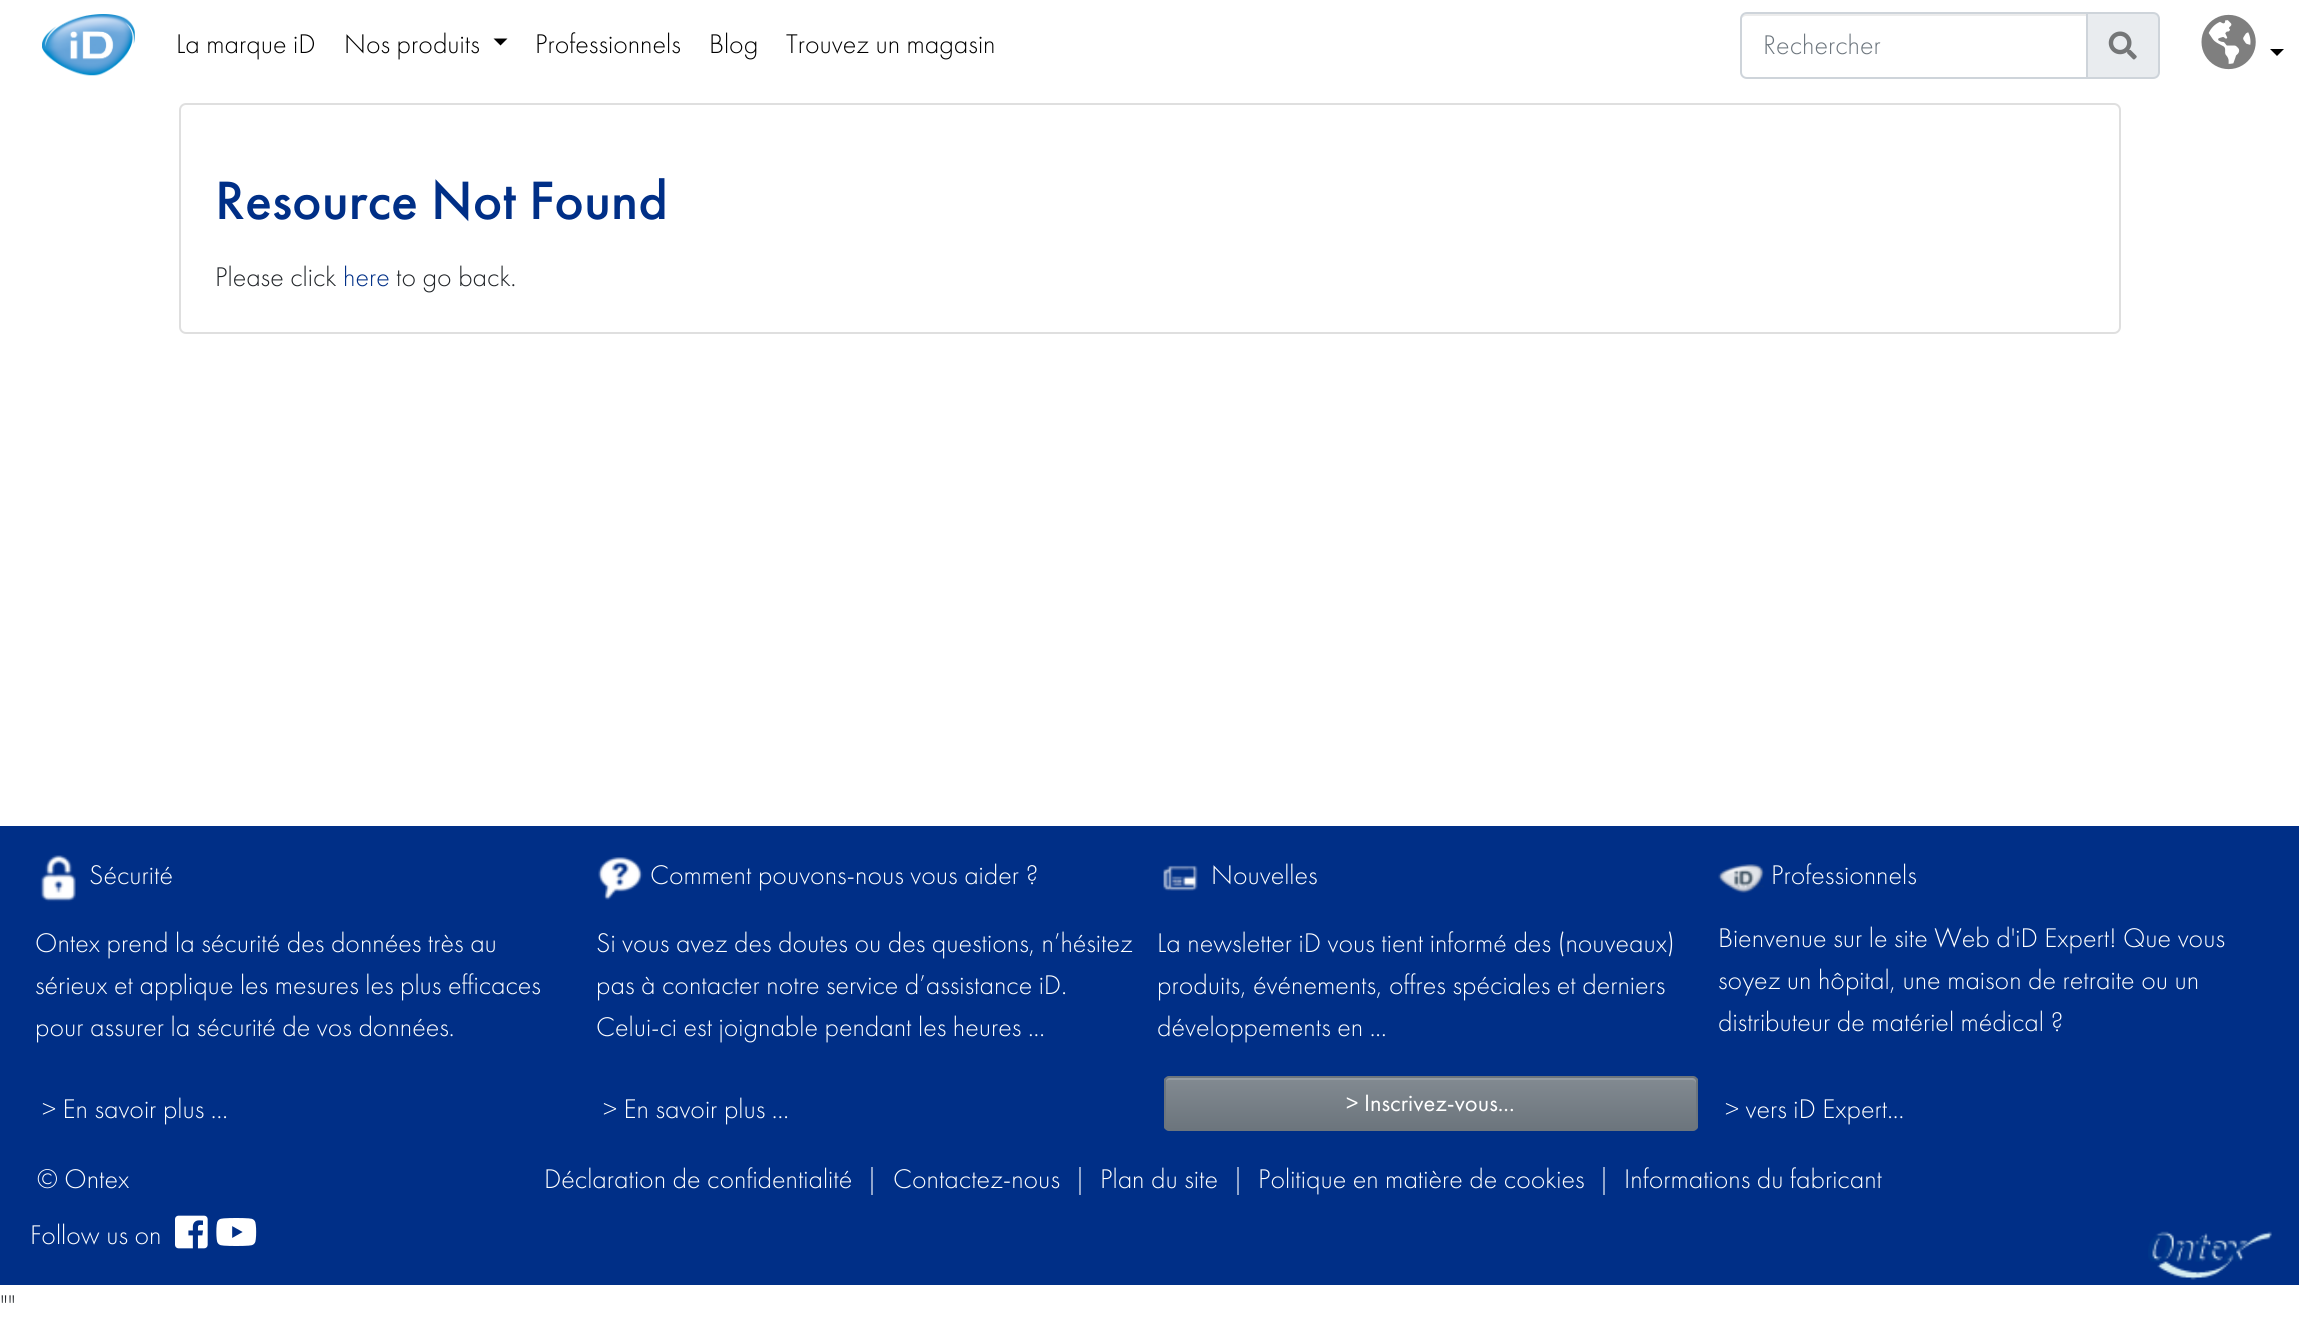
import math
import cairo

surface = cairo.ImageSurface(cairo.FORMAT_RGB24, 2299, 1326)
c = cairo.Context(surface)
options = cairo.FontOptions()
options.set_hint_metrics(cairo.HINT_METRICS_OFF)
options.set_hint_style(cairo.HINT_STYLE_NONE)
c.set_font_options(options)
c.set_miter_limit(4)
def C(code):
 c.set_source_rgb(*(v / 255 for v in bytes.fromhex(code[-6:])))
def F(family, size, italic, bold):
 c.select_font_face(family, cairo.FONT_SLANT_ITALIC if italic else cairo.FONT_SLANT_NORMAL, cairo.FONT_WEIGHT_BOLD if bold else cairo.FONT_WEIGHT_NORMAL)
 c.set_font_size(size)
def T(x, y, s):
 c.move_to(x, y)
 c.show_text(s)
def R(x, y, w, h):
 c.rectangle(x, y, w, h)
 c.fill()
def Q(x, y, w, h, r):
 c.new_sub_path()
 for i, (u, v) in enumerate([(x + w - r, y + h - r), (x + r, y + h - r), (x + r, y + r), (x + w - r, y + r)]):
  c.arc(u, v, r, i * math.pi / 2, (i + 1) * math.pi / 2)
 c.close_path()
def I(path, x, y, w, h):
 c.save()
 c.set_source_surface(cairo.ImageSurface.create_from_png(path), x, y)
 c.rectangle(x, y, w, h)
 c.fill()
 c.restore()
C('ffffff')
c.paint()
I('1.png',42,14,93,62)
F('Futura PT Light',28,0,0)
C('000000')
T(176,53,'La marque iD')
T(344,53,'Nos produits')
c.new_path()
c.move_to(493.5,38.5)
c.line_to(507.5,38.5)
c.line_to(500.5,45.5)
c.close_path()
c.fill()
T(535,53,'Professionnels')
T(709,53,'Blog')
T(786,53,'Trouvez un magasin')
C('ececec')
c.new_path()
c.move_to(1746,16)
c.line_to(2086,16)
c.line_to(2086,14)
c.line_to(1746,14)
c.curve_to(1742,14,1741,18,1741,21)
c.curve_to(1741,18,1744,16,1746,16)
c.close_path()
c.fill()
C('e9ecef')
c.new_path()
c.move_to(2087,13)
c.line_to(2153,13)
c.curve_to(2156.5,13,2159,15.5,2159,19)
c.line_to(2159,72)
c.curve_to(2159,75.5,2156.5,78,2153,78)
c.line_to(2087,78)
c.close_path()
c.fill_preserve()
C('ced4da')
c.stroke()
c.new_path()
c.move_to(1747,13)
c.line_to(2087,13)
c.line_to(2087,78)
c.line_to(1747,78)
c.curve_to(1743.5,78,1741,75.5,1741,72)
c.line_to(1741,19)
c.curve_to(1741,15.5,1743.5,13,1747,13)
c.close_path()
c.stroke()
C('6c757d')
T(1763,54,'Rechercher')
I('2.png',2108,31,29,29)
I('3.png',2201,14,55,56)
C('000000')
c.new_path()
c.move_to(2270,49)
c.line_to(2284,49)
c.line_to(2277,56)
c.close_path()
c.fill()
Q(180,104,1940,229,6)
C('dfdfdf')
c.stroke()
F('Futura PT Medium',56,0,0)
C('002f87')
T(215,219,'Resource Not Found')
F('Futura PT Light',28,0,0)
C('212529')
T(215,286,'Please click')
C('002f87')
T(343,286,'here')
C('212529')
T(396,286,'to go back.')
C('002f87')
R(0,826,2299,459)
I('4.png',40,855,36,47)
C('ffffff')
T(89,884,'Sécurité')
T(35,952,'Ontex prend la sécurité des données très au')
T(35,994,'sérieux et applique les mesures les plus efficaces')
T(35,1036,'pour assurer la sécurité de vos données.')
T(42,1118,'> En savoir plus ...')
I('5.png',598,857,45,43)
T(650,884,'Comment pouvons-nous vous aider ?')
T(596,952,'Si vous avez des doutes ou des questions, n’hésitez')
T(596,994,'pas à contacter notre service d’assistance iD.')
T(596,1036,'Celui-ci est joignable pendant les heures ...')
T(603,1118,'> En savoir plus ...')
I('6.png',1163,865,35,26)
T(1211,884,'Nouvelles')
T(1157,952,'La newsletter iD vous tient informé des (nouveaux)')
T(1157,994,'produits, événements, offres spéciales et derniers')
T(1157,1036,'développements en ...')
c.save()
Q(1164,1076,534,55,5)
c.clip()
gradient = cairo.LinearGradient(1431,1078,1431,1129)
gradient.add_color_stop_rgba(0,0.51,0.541,0.569,1)
gradient.add_color_stop_rgba(1,0.424,0.459,0.49,1)
c.set_source(gradient)
R(1164,1078,534,51)
c.restore()
C('949ba1')
c.new_path()
c.move_to(1169,1080)
c.line_to(1692,1080)
c.curve_to(1694,1080,1696,1081,1696,1084)
c.line_to(1696,1082)
c.curve_to(1696,1080,1694,1078,1692,1078)
c.line_to(1170,1078)
c.curve_to(1168,1078,1166,1080,1166,1082)
c.line_to(1166,1084)
c.curve_to(1166,1081,1167,1080,1169,1080)
c.close_path()
c.fill()
Q(1165,1077,532,53,4)
C('6c757d')
c.stroke()
F('Futura PT',24.5,0,0)
C('ffffff')
T(1346,1111,'> Inscrivez-vous...')
I('7.png',1718,864,47,29)
F('Futura PT Light',28,0,0)
T(1771,884,'Professionnels')
T(1718,947,'Bienvenue sur le site Web d\'iD Expert! Que vous')
T(1718,989,'soyez un hôpital, une maison de retraite ou un')
T(1718,1031,'distributeur de matériel médical ?')
T(1725,1118,'> vers iD Expert...')
T(37,1188,'© Ontex')
T(544,1188,'Déclaration de confidentialité')
T(865,1188,'|')
T(893,1188,'Contactez-nous')
T(1073,1188,'|')
T(1100,1188,'Plan du site')
T(1231,1188,'|')
T(1258,1188,'Politique en matière de cookies')
T(1597,1188,'|')
T(1624,1188,'Informations du fabricant')
T(30,1244,'Follow us on')
I('8.png',175,1215,33,34)
I('9.png',216,1218,41,28)
I('10.png',2148,1231,124,49)
C('212529')
T(0,1314,'""')
surface.write_to_png('o.png')
